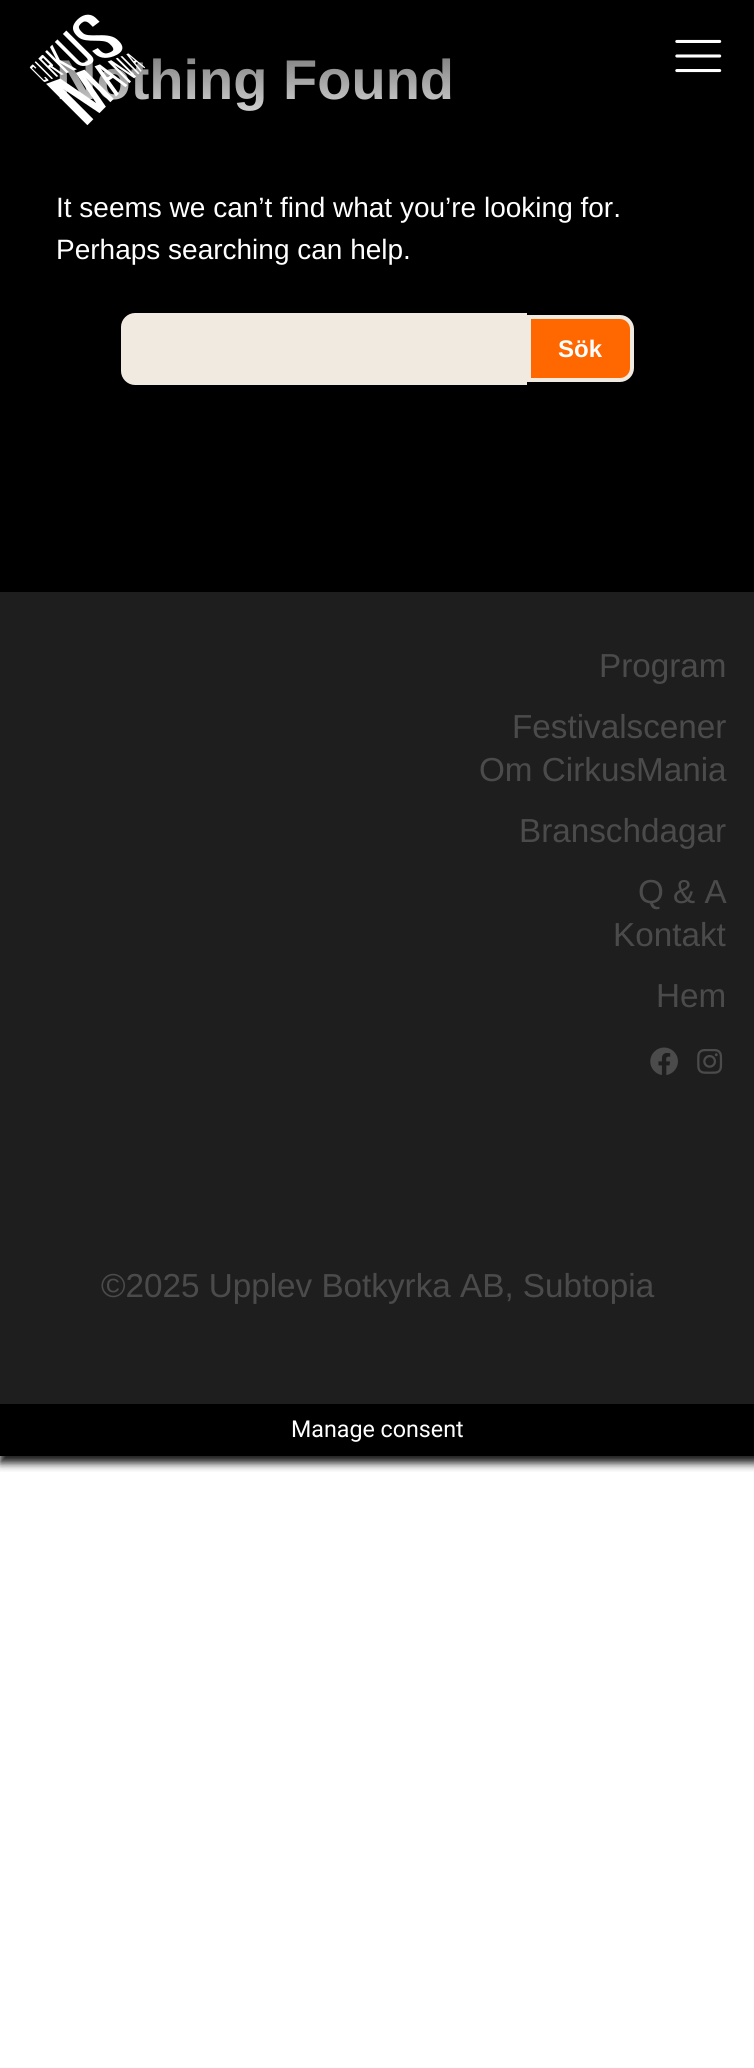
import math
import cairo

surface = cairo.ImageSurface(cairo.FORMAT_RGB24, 754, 2068)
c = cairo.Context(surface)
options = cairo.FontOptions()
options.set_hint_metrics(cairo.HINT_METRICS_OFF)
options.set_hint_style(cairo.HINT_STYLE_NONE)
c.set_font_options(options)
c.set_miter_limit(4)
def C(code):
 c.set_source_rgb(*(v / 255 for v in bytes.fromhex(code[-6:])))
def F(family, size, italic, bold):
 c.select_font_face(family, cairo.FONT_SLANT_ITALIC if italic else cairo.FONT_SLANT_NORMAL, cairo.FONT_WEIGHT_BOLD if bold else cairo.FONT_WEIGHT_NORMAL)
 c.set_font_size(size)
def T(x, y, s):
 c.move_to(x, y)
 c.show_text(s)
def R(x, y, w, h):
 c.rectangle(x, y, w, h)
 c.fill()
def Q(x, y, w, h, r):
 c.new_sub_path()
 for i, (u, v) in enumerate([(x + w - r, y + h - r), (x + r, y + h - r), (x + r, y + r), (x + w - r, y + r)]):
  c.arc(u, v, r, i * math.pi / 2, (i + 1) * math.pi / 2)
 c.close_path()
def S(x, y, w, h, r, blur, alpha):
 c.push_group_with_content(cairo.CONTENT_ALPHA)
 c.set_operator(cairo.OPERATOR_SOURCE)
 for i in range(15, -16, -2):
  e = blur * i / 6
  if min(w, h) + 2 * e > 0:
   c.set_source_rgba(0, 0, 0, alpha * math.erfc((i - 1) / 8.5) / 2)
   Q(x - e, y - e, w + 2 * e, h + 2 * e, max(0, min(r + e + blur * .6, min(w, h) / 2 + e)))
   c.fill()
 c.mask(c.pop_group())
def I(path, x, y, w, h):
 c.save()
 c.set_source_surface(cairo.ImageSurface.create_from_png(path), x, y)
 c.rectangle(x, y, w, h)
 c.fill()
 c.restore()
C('ffffff')
c.paint()
C('000000')
R(0,0,754,1456)
F('Liberation Sans',56,0,1)
C('ffffff')
T(56,99,'Nothing Found')
gradient = cairo.LinearGradient(377,0,377,140)
gradient.add_color_stop_rgba(0,0,0,0,.8)
gradient.add_color_stop_rgba(.9,0,0,0,.1)
gradient.add_color_stop_rgba(1,0,0,0,0)
c.set_source(gradient)
R(59,58,392,53)
I('1.png',29,14,117,112)
I('2.png',675,39,47,34)
F('Liberation Sans',28,0,0)
C('ffffff')
T(56,217,'It seems we can’t find what you’re looking for.')
T(56,259,'Perhaps searching can help.')
C('f1eae0')
c.new_path()
c.move_to(135,315)
c.line_to(525,315)
c.line_to(525,383)
c.line_to(135,383)
c.curve_to(128.5,383,123,377.5,123,371)
c.line_to(123,327)
c.curve_to(123,320.5,128.5,315,135,315)
c.close_path()
c.fill_preserve()
c.set_line_width(4)
c.stroke()
C('ff6700')
c.new_path()
c.move_to(529,317)
c.line_to(620,317)
c.curve_to(626.5,317,632,322.5,632,329)
c.line_to(632,368)
c.curve_to(632,374.5,626.5,380,620,380)
c.line_to(529,380)
c.close_path()
c.fill_preserve()
C('f1eae0')
c.stroke()
F('Liberation Sans',24,0,1)
C('ffffff')
T(558,357,'Sök')
c.save()
c.rectangle(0,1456,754,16)
c.clip()
C('161616')
S(0,1404,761,59,0,4.5,1)
c.restore()
C('1e1e1e')
R(0,592,754,812)
F('Liberation Sans',33.25,0,0)
C('4b4b4b')
T(599,677,'Program')
T(512,738,'Festivalscener')
T(479,781,'Om CirkusMania')
T(519,842,'Branschdagar')
T(638,903,'Q & A')
T(613,946,'Kontakt')
T(656,1007,'Hem')
I('3.png',650,1047,28,28)
I('4.png',697,1049,26,25)
T(101,1297,'©2025 Upplev Botkyrka AB, Subtopia')
F('Roboto',23.25,0,0)
C('ffffff')
T(291,1437,'Manage consent')
surface.write_to_png('o.png')
